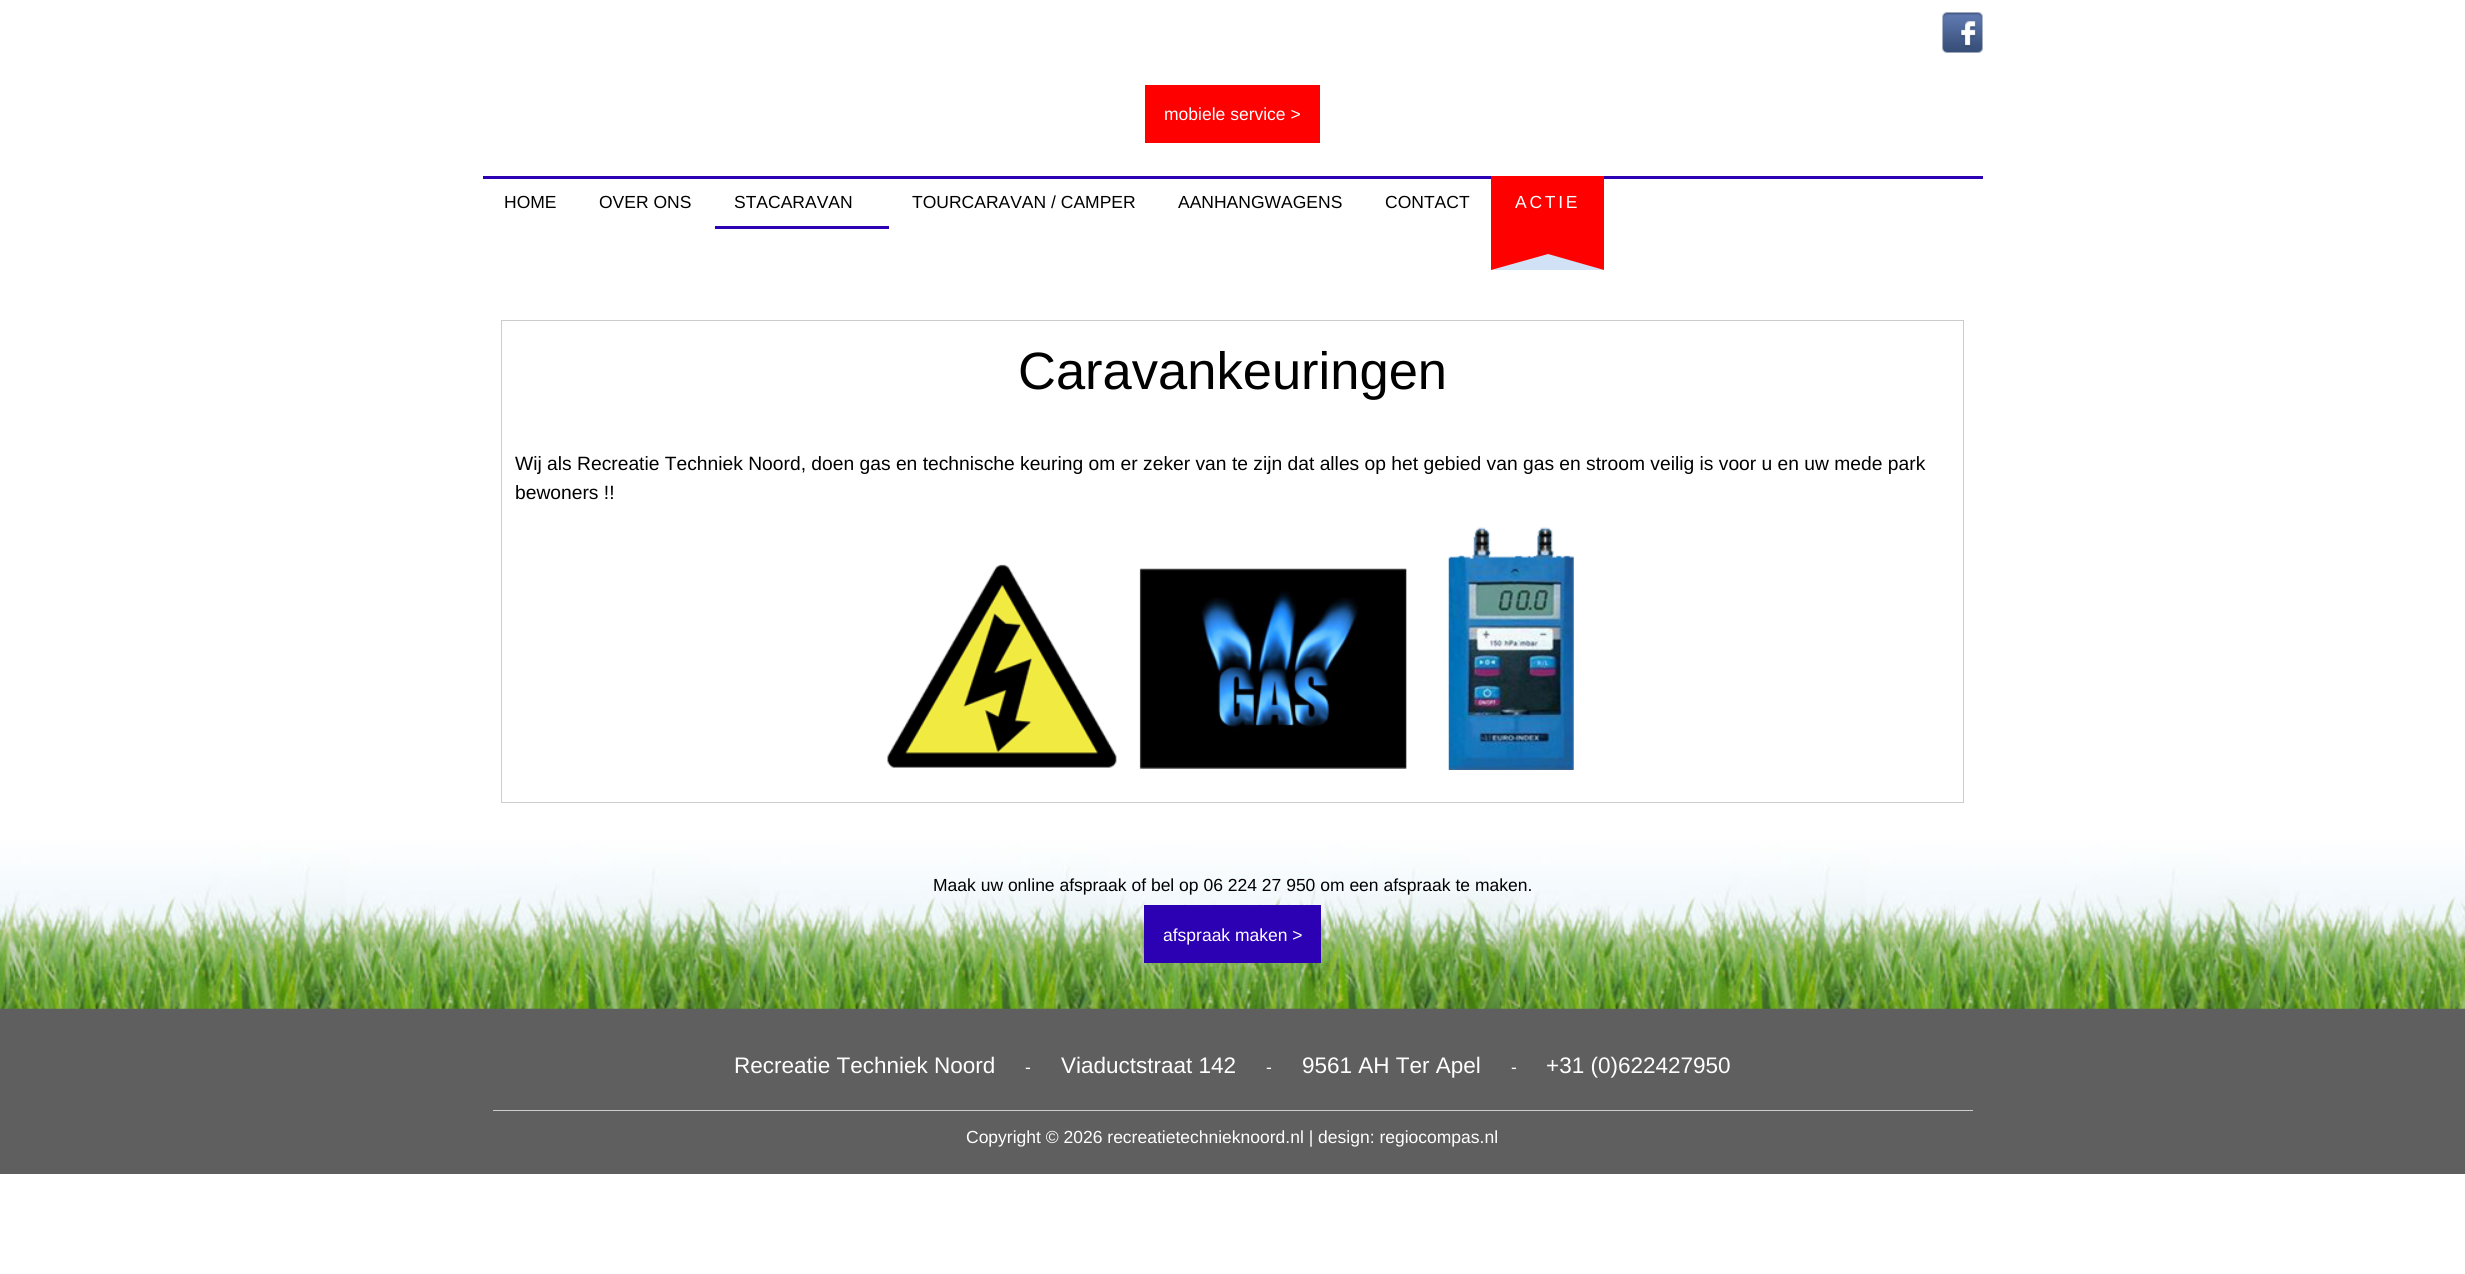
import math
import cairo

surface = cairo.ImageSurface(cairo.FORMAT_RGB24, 2465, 1274)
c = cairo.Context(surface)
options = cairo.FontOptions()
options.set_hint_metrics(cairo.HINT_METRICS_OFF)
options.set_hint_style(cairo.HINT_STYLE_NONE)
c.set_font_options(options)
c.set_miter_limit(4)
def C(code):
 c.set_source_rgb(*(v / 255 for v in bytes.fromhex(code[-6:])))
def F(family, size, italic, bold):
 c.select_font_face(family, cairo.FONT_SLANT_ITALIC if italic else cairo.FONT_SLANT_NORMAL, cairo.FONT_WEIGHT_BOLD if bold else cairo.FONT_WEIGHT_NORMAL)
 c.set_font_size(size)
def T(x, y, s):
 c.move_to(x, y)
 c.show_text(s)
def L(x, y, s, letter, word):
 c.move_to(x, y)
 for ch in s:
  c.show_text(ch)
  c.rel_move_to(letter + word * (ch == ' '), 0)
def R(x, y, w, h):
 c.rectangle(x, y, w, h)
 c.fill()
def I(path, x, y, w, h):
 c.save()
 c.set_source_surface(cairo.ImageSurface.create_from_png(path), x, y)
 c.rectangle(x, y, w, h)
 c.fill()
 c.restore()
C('ffffff')
c.paint()
I('1.png',1942,12,41,41)
C('ff0000')
R(1145,85,175,58)
F('Liberation Sans',17.5,0,0)
C('ffffff')
T(1164,120,'mobiele service >')
C('2c00b3')
R(483,176,1500,3)
C('000000')
T(504,208,'HOME')
T(599,208,'OVER ONS')
C('2c00b3')
R(715,226,174,3)
C('000000')
T(734,208,'STACARAVAN')
T(912,208,'TOURCARAVAN / CAMPER')
T(1178,208,'AANHANGWAGENS')
T(1385,208,'CONTACT')
C('ff0000')
R(1491,176,113,94)
C('ffffff')
L(1515,208,'ACTIE',2.75,0)
C('d1e2f7')
c.new_path()
c.move_to(1604,270)
c.line_to(1491,270)
c.line_to(1548,254)
c.close_path()
c.fill()
c.rectangle(501.5,320.5,1462,482)
C('cccccc')
c.set_line_width(1)
c.stroke()
F('Liberation Sans',52.5,0,0)
C('000000')
T(1018,389,'Caravankeuringen')
F('Liberation Sans',19.25,0,0)
T(515,470,'Wij als Recreatie Techniek Noord, doen gas en technische keuring om er zeker van te zijn dat alles op het gebied van gas en stroom veilig is voor u en uw mede park')
T(515,499,'bewoners !!')
I('2.png',887,527,687,243)
C('5f5f5f')
R(0,1008,2465,166)
I('3.png',0,834,2465,175)
F('Liberation Sans',17.5,0,0)
C('000000')
T(933,891,'Maak uw online afspraak of bel op 06 224 27 950 om een afspraak te maken.')
C('2c00b3')
R(1144,905,177,58)
C('ffffff')
T(1163,941,'afspraak maken >')
F('Liberation Sans',22.5,0,0)
T(734,1073,'Recreatie Techniek Noord')
F('Liberation Sans',17.5,0,0)
T(1025,1073,'-')
F('Liberation Sans',22.5,0,0)
T(1061,1073,'Viaductstraat 142')
F('Liberation Sans',17.5,0,0)
T(1266,1073,'-')
F('Liberation Sans',22.5,0,0)
T(1302,1073,'9561 AH Ter Apel')
F('Liberation Sans',17.5,0,0)
T(1511,1073,'-')
F('Liberation Sans',22.5,0,0)
T(1546,1073,'+31 (0)622427950')
C('cccccc')
R(493,1110,1480,1)
F('Liberation Sans',17.5,0,0)
C('ffffff')
T(966,1143,'Copyright © 2026 recreatietechnieknoord.nl | design: regiocompas.nl')
surface.write_to_png('o.png')
